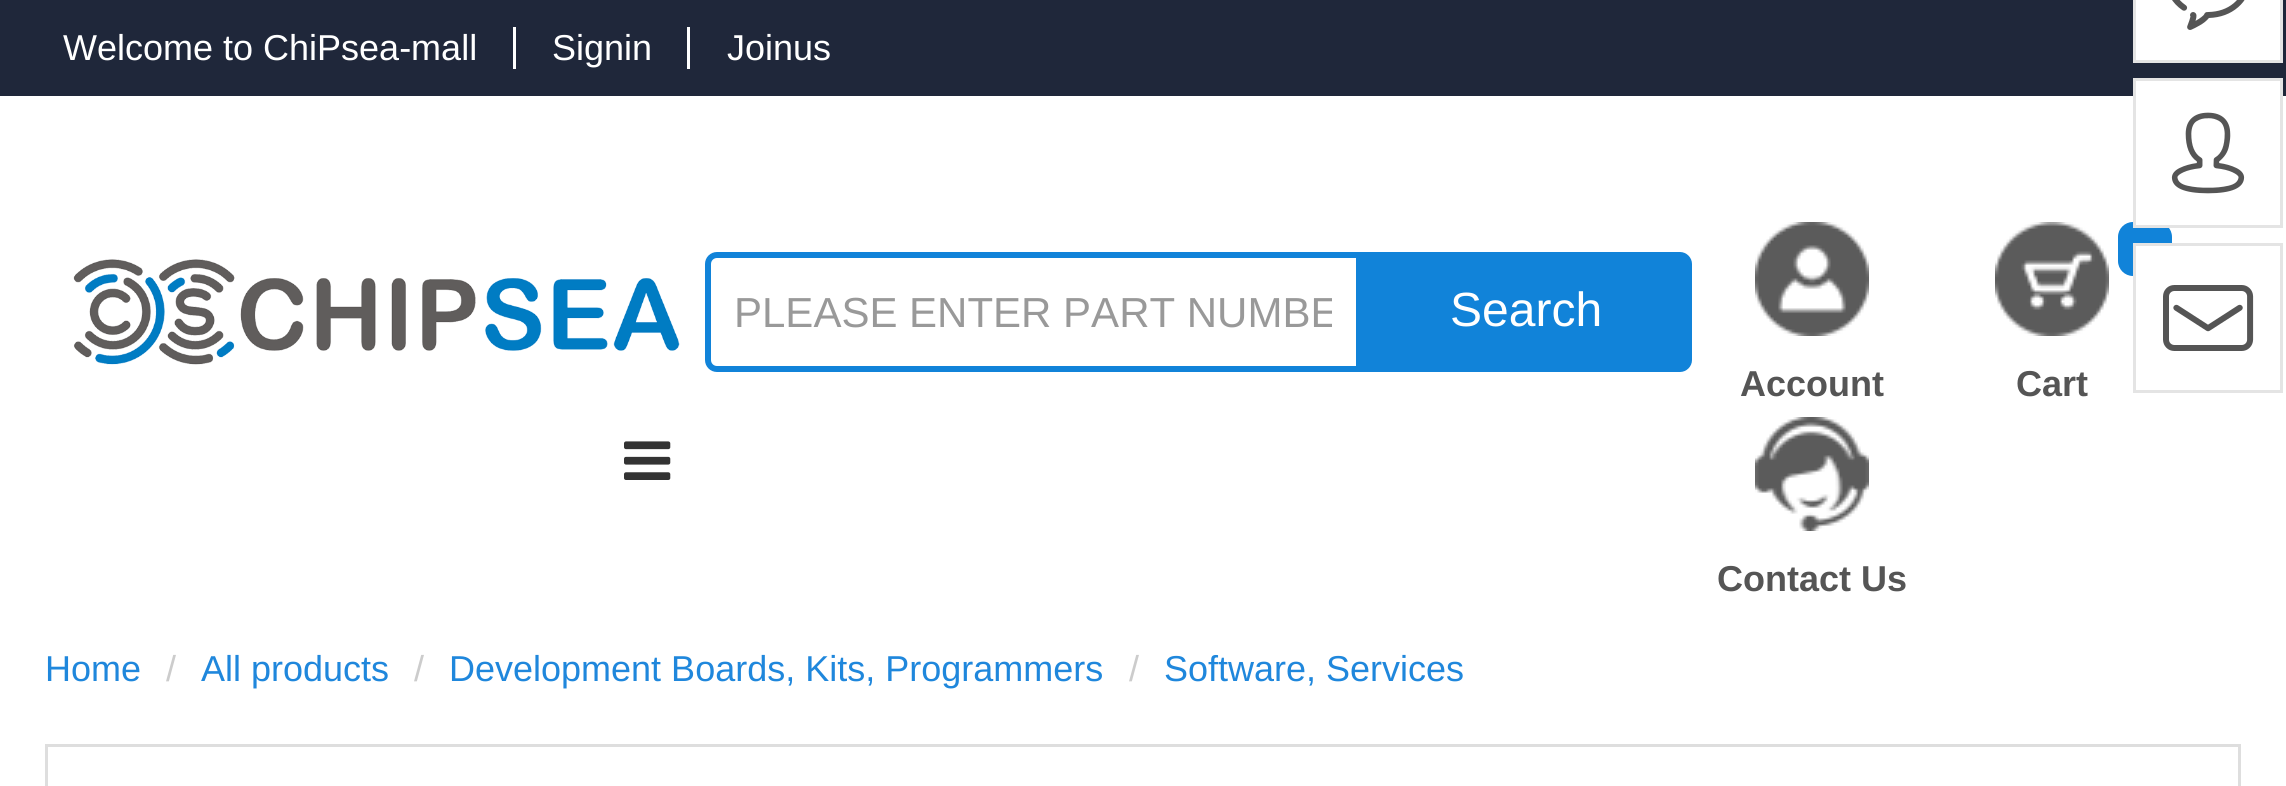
import math
import cairo

surface = cairo.ImageSurface(cairo.FORMAT_RGB24, 2286, 786)
c = cairo.Context(surface)
options = cairo.FontOptions()
options.set_hint_metrics(cairo.HINT_METRICS_OFF)
options.set_hint_style(cairo.HINT_STYLE_NONE)
c.set_font_options(options)
c.set_miter_limit(4)
def C(code):
 c.set_source_rgb(*(v / 255 for v in bytes.fromhex(code[-6:])))
def F(family, size, italic, bold):
 c.select_font_face(family, cairo.FONT_SLANT_ITALIC if italic else cairo.FONT_SLANT_NORMAL, cairo.FONT_WEIGHT_BOLD if bold else cairo.FONT_WEIGHT_NORMAL)
 c.set_font_size(size)
def T(x, y, s):
 c.move_to(x, y)
 c.show_text(s)
def R(x, y, w, h):
 c.rectangle(x, y, w, h)
 c.fill()
def Q(x, y, w, h, r):
 c.new_sub_path()
 for i, (u, v) in enumerate([(x + w - r, y + h - r), (x + r, y + h - r), (x + r, y + r), (x + w - r, y + r)]):
  c.arc(u, v, r, i * math.pi / 2, (i + 1) * math.pi / 2)
 c.close_path()
def I(path, x, y, w, h):
 c.save()
 c.set_source_surface(cairo.ImageSurface.create_from_png(path), x, y)
 c.rectangle(x, y, w, h)
 c.fill()
 c.restore()
C('ffffff')
c.paint()
C('1f273a')
R(0,0,2286,96)
F('Liberation Sans',36,0,0)
C('ffffff')
T(63,60,'Welcome to ChiPsea-mall')
R(513,27,3,42)
T(552,60,'Signin')
R(687,27,3,42)
T(727,60,'Joinus')
I('1.png',73,259,607,106)
I('2.png',624,441,47,39)
c.new_path()
c.move_to(717,255)
c.line_to(1359,255)
c.line_to(1359,369)
c.line_to(717,369)
c.curve_to(712,369,708,365,708,360)
c.line_to(708,264)
c.curve_to(708,259,712,255,717,255)
c.close_path()
C('1183d9')
c.set_line_width(6)
c.stroke()
c.save()
c.rectangle(735,288,597,48)
c.clip()
F('Liberation Sans',42,0,0)
C('999999')
T(734,327,'PLEASE ENTER PART NUMBE')
c.restore()
c.new_path()
c.move_to(1359,252)
c.line_to(1680,252)
c.curve_to(1686.5,252,1692,257.5,1692,264)
c.line_to(1692,360)
c.curve_to(1692,366.5,1686.5,372,1680,372)
c.line_to(1359,372)
c.close_path()
c.fill()
F('Liberation Sans',48,0,0)
C('ffffff')
T(1450,326,'Search')
I('3.png',1755,222,114,114)
F('Liberation Sans',36,0,1)
C('555555')
T(1740,396,'Account')
I('4.png',1995,222,114,114)
C('1183d9')
Q(2118,222,54,54,15)
c.fill()
C('555555')
T(2016,396,'Cart')
I('5.png',1755,417,114,114)
T(1717,591,'Contact Us')
F('Liberation Sans',36,0,0)
C('1f87dc')
T(45,681,'Home')
C('cccccc')
T(166,681,'/')
C('1f87dc')
T(201,681,'All products')
C('cccccc')
T(414,681,'/')
C('1f87dc')
T(449,681,'Development Boards, Kits, Programmers')
C('cccccc')
T(1129,681,'/')
C('1f87dc')
T(1164,681,'Software, Services')
c.rectangle(46.5,745.5,2193,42)
C('dedede')
c.set_line_width(3)
c.stroke()
C('ffffff')
c.rectangle(2134.5,-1.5,147,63)
c.fill_preserve()
C('e4e4e4')
c.stroke()
I('6.png',2172,0,73,30)
C('ffffff')
c.rectangle(2134.5,79.5,147,147)
c.fill_preserve()
C('e4e4e4')
c.stroke()
I('7.png',2171,112,74,82)
C('ffffff')
R(2136,246,36,30)
c.rectangle(2134.5,244.5,147,147)
C('e4e4e4')
c.stroke()
I('8.png',2163,285,91,66)
surface.write_to_png('o.png')
